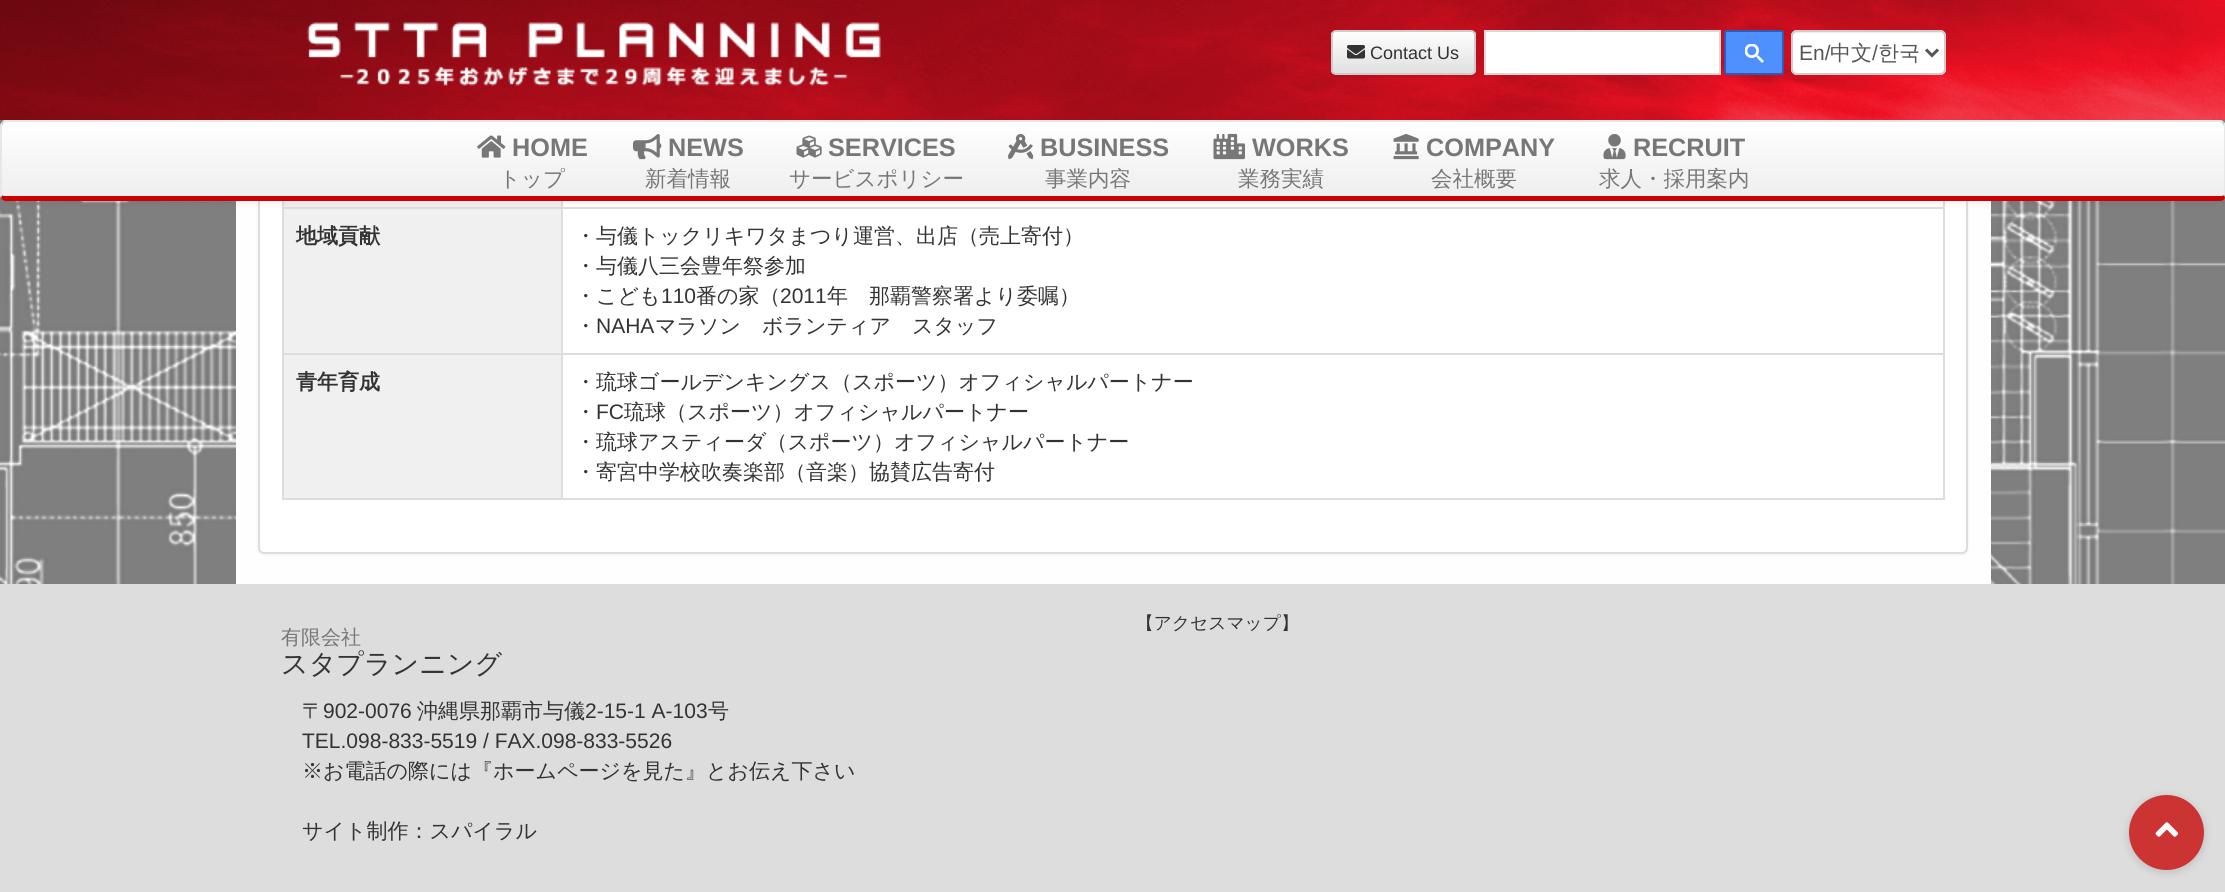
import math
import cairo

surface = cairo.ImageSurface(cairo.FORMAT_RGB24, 2225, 892)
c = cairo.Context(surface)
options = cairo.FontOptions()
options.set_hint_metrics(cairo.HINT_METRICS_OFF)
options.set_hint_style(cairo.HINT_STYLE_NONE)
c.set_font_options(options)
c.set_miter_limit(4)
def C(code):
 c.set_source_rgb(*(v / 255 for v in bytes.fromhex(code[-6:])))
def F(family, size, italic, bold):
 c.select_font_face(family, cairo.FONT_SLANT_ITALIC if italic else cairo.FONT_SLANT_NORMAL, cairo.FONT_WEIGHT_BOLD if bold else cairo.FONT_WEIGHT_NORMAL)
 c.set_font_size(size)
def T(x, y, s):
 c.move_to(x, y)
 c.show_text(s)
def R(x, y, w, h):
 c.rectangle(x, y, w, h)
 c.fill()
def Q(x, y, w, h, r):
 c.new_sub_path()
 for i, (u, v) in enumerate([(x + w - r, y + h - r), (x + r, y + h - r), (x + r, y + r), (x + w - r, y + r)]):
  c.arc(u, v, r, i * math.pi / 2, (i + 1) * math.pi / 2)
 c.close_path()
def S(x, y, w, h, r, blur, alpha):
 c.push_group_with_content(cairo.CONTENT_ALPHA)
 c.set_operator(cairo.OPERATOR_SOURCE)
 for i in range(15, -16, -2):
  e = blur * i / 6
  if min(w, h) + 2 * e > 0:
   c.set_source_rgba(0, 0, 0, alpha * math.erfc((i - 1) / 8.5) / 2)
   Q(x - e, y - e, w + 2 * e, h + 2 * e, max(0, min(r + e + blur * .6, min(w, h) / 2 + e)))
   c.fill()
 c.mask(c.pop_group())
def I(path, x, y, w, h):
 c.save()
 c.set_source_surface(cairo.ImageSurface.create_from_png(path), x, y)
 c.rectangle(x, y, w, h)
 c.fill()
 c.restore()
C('ffffff')
c.paint()
I('1.png',0,120,2225,464)
C('fefefe')
R(236,201,1755,383)
C('000000')
S(258,-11,1710,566,6,1.5,.05)
C('ffffff')
Q(259,-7,1708,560,5)
c.fill_preserve()
C('dddddd')
c.stroke()
I('2.png',0,0,2225,120)
I('3.png',307,22,574,64)
C('000000')
S(1331,32,145,45,5,1,.07)
c.save()
Q(1331,30,145,45,5)
c.clip()
gradient = cairo.LinearGradient(1403,31,1403,74)
gradient.add_color_stop_rgba(0,1,1,1,1)
gradient.add_color_stop_rgba(1,0.878,0.878,0.878,1)
c.set_source(gradient)
R(1331,32,145,42)
c.restore()
c.set_source_rgba(1,1,1,0.15)
c.new_path()
c.move_to(1335,33)
c.line_to(1449,33)
c.curve_to(1477,33,1474,27,1474,48)
c.line_to(1474,73)
c.curve_to(1475,73,1475,72,1475,71)
c.line_to(1475,35)
c.curve_to(1475,33,1474,32,1472,32)
c.line_to(1335,32)
c.curve_to(1333,32,1332,33,1332,35)
c.line_to(1332,36)
c.curve_to(1332,34,1333,33,1335,33)
c.close_path()
c.fill()
Q(1332,31,143,43,4)
C('cccccc')
c.stroke()
I('4.png',1347,45,18,14)
F('Liberation Sans',18,0,0)
C('333333')
T(1370,59,'Contact Us')
C('ffffff')
c.rectangle(1485,31,235,43)
c.fill_preserve()
C('d9d9d9')
c.stroke()
C('4d90fe')
Q(1725,31,58,43,2)
c.fill_preserve()
C('2f5bb7')
c.stroke()
I('5.png',1745,44,19,19)
C('ffffff')
Q(1791,30,155,45,6)
c.fill()
C('ececec')
c.new_path()
c.move_to(1797,33)
c.line_to(1940,33)
c.curve_to(1942,33,1944,35,1944,38)
c.curve_to(1944,35,1942,32,1939,32)
c.line_to(1797,32)
c.curve_to(1796,32,1795,33,1794,34)
c.close_path()
c.fill()
Q(1792,31,153,43,5)
C('cccccc')
c.stroke()
c.new_path()
c.move_to(1926,49.5)
c.line_to(1932,55.5)
c.line_to(1938,49.5)
C('555555')
c.set_line_width(3)
c.stroke()
F('Liberation Sans',21,0,0)
T(1799,60,'En/')
F('WenQuanYi Zen Hei Medium',21,0,0)
T(1830,60,'中文')
F('Liberation Sans',21,0,0)
T(1872,60,'/')
F('WenQuanYi Zen Hei Medium',21,0,0)
T(1878,60,'한국')
C('dddddd')
R(1943,201,2,299)
R(282,498,1662,2)
R(282,201,2,299)
C('f0f0f0')
R(284,201,277,6)
C('dddddd')
R(561,207,1383,2)
R(561,353,1383,2)
R(561,353,2,147)
R(282,353,281,2)
R(561,207,2,147)
R(282,207,281,2)
R(561,201,2,8)
C('f0f0f0')
R(284,209,277,144)
c.save()
c.set_fill_rule(cairo.FILL_RULE_EVEN_ODD)
c.new_path()
c.move_to(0,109)
c.line_to(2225,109)
c.line_to(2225,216)
c.line_to(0,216)
c.close_path()
c.move_to(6,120)
c.line_to(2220,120)
c.curve_to(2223.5,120,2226,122.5,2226,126)
c.line_to(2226,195)
c.curve_to(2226,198.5,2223.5,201,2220,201)
c.line_to(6,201)
c.curve_to(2.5,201,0,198.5,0,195)
c.line_to(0,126)
c.curve_to(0,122.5,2.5,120,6,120)
c.close_path()
c.clip()
C('000000')
S(0,122,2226,81,6,4,.07)
c.restore()
gradient = cairo.LinearGradient(1113,121,1113,197)
gradient.add_color_stop_rgba(0,1,1,1,1)
gradient.add_color_stop_rgba(1,0.933,0.933,0.933,1)
c.set_source(gradient)
c.new_path()
c.move_to(6,122)
c.line_to(2220,122)
c.curve_to(2222,122,2224,124,2224,126)
c.line_to(2224,195)
c.curve_to(2224,196,2222,196,2220,196)
c.line_to(6,196)
c.curve_to(4,196,2,196,2,195)
c.line_to(2,126)
c.curve_to(2,124,4,122,6,122)
c.close_path()
c.fill()
c.set_source_rgba(1,1,1,0.15)
c.new_path()
c.move_to(6,123)
c.line_to(2220,123)
c.curve_to(2222,123,2224,125,2224,128)
c.line_to(2224,196)
c.line_to(2224,195)
c.line_to(2224,126)
c.curve_to(2224,124,2222,122,2220,122)
c.line_to(6,122)
c.curve_to(4,122,2,124,2,126)
c.line_to(2,195)
c.line_to(2,196)
c.line_to(2,128)
c.curve_to(2,125,4,123,6,123)
c.close_path()
c.fill()
C('e7e7e7')
c.new_path()
c.move_to(6,120)
c.curve_to(4,120,3,121,2,122)
c.line_to(3,123)
c.line_to(6,122)
c.line_to(2220,122)
c.line_to(2223,123)
c.line_to(2224,122)
c.curve_to(2223,121,2222,120,2220,120)
c.close_path()
c.fill()
c.new_path()
c.move_to(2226,195)
c.line_to(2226,126)
c.curve_to(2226,124,2225,123,2224,122)
c.line_to(2223,123)
c.curve_to(2224,124,2224,125,2224,126)
c.line_to(2224,195)
c.line_to(2225,198)
c.close_path()
c.fill()
C('cc0000')
c.new_path()
c.move_to(6,201)
c.line_to(2220,201)
c.curve_to(2222,201,2224,200,2225,198)
c.line_to(2224,195)
c.curve_to(2224,196,2222,196,2220,196)
c.line_to(6,196)
c.curve_to(4,196,2,196,2,195)
c.line_to(1,198)
c.curve_to(2,200,4,201,6,201)
c.close_path()
c.fill()
C('e7e7e7')
c.new_path()
c.move_to(0,126)
c.line_to(0,195)
c.line_to(1,198)
c.line_to(2,195)
c.line_to(2,126)
c.curve_to(2,125,2,124,3,123)
c.line_to(2,122)
c.curve_to(1,123,0,124,0,126)
c.close_path()
c.fill()
I('6.png',477,135,29,23)
F('Liberation Sans',25.25,0,1)
C('777777')
T(512,156,'HOME')
F('WenQuanYi Zen Hei Medium',21.5,0,0)
T(499,186,'トップ')
I('7.png',633,134,29,26)
F('Liberation Sans',25.25,0,1)
T(668,156,'NEWS')
F('WenQuanYi Zen Hei Medium',21.5,0,0)
T(645,186,'新着情報')
I('8.png',796,135,26,23)
F('Liberation Sans',25.25,0,1)
T(828,156,'SERVICES')
F('WenQuanYi Zen Hei Medium',21.5,0,0)
T(789,186,'サービスポリシー')
I('9.png',1008,134,26,26)
F('Liberation Sans',25.25,0,1)
T(1040,156,'BUSINESS')
F('WenQuanYi Zen Hei Medium',21.5,0,0)
T(1045,186,'事業内容')
I('10.png',1213,133,32,27)
F('Liberation Sans',25.25,0,1)
T(1252,156,'WORKS')
F('WenQuanYi Zen Hei Medium',21.5,0,0)
T(1238,186,'業務実績')
I('11.png',1393,134,26,26)
F('Liberation Sans',25.25,0,1)
T(1426,156,'COMPANY')
F('WenQuanYi Zen Hei Medium',21.5,0,0)
T(1431,186,'会社概要')
I('12.png',1603,134,23,26)
F('Liberation Sans',25.25,0,1)
T(1633,156,'RECRUIT')
F('WenQuanYi Zen Hei Medium',21.5,0,0)
T(1599,186,'求人・採用案内')
F('WenQuanYi Zen Hei',21,0,1)
C('333333')
T(296,243,'地域貢献')
F('WenQuanYi Zen Hei Medium',21,0,0)
T(575,243,'・与儀トックリキワタまつり運営、出店（売上寄付）')
T(575,273,'・与儀八三会豊年祭参加')
T(575,303,'・こども')
F('Liberation Sans',21,0,0)
T(661,303,'110')
F('WenQuanYi Zen Hei Medium',21,0,0)
T(696,303,'番の家（')
F('Liberation Sans',21,0,0)
T(780,303,'2011')
F('WenQuanYi Zen Hei Medium',21,0,0)
T(827,303,'年　那覇警察署より委嘱）')
T(575,333,'・')
F('Liberation Sans',21,0,0)
T(596,333,'NAHA')
F('WenQuanYi Zen Hei Medium',21,0,0)
T(655,333,'マラソン　ボランティア　スタッフ')
C('f0f0f0')
R(284,355,277,143)
F('WenQuanYi Zen Hei',21,0,1)
C('333333')
T(296,389,'青年育成')
F('WenQuanYi Zen Hei Medium',21,0,0)
T(575,389,'・琉球ゴールデンキングス（スポーツ）オフィシャルパートナー')
T(575,419,'・')
F('Liberation Sans',21,0,0)
T(596,419,'FC')
F('WenQuanYi Zen Hei Medium',21,0,0)
T(624,419,'琉球（スポーツ）オフィシャルパートナー')
T(575,449,'・琉球アスティーダ（スポーツ）オフィシャルパートナー')
T(575,479,'・寄宮中学校吹奏楽部（音楽）協賛広告寄付')
C('dddddd')
R(0,584,2225,308)
F('WenQuanYi Zen Hei Medium',17.75,0,0)
C('333333')
T(1136,629,'【アクセスマップ】')
F('WenQuanYi Zen Hei Medium',20,0,0)
C('777777')
T(281,644,'有限会社')
F('WenQuanYi Zen Hei Medium',27,0,0)
C('333333')
T(281,673,'スタプランニング')
F('WenQuanYi Zen Hei Medium',21,0,0)
T(302,718,'〒')
F('Liberation Sans',21,0,0)
T(323,718,'902-0076')
F('WenQuanYi Zen Hei Medium',21,0,0)
T(417,718,'沖縄県那覇市与儀')
F('Liberation Sans',21,0,0)
T(585,718,'2-15-1 A-103')
F('WenQuanYi Zen Hei Medium',21,0,0)
T(708,718,'号')
F('Liberation Sans',21,0,0)
T(302,748,'TEL.098-833-5519 / FAX.098-833-5526')
F('WenQuanYi Zen Hei Medium',21,0,0)
T(302,778,'※お電話の際には『ホームページを見た』とお伝え下さい')
T(302,838,'サイト制作：スパイラル')
C('000000')
S(2129,797,75,75,37.5,4.5,.15)
C('cc3333')
c.arc(2166.5,832.5,37.5,0,2 * math.pi)
c.fill()
I('13.png',2155,822,24,15)
surface.write_to_png('o.png')
